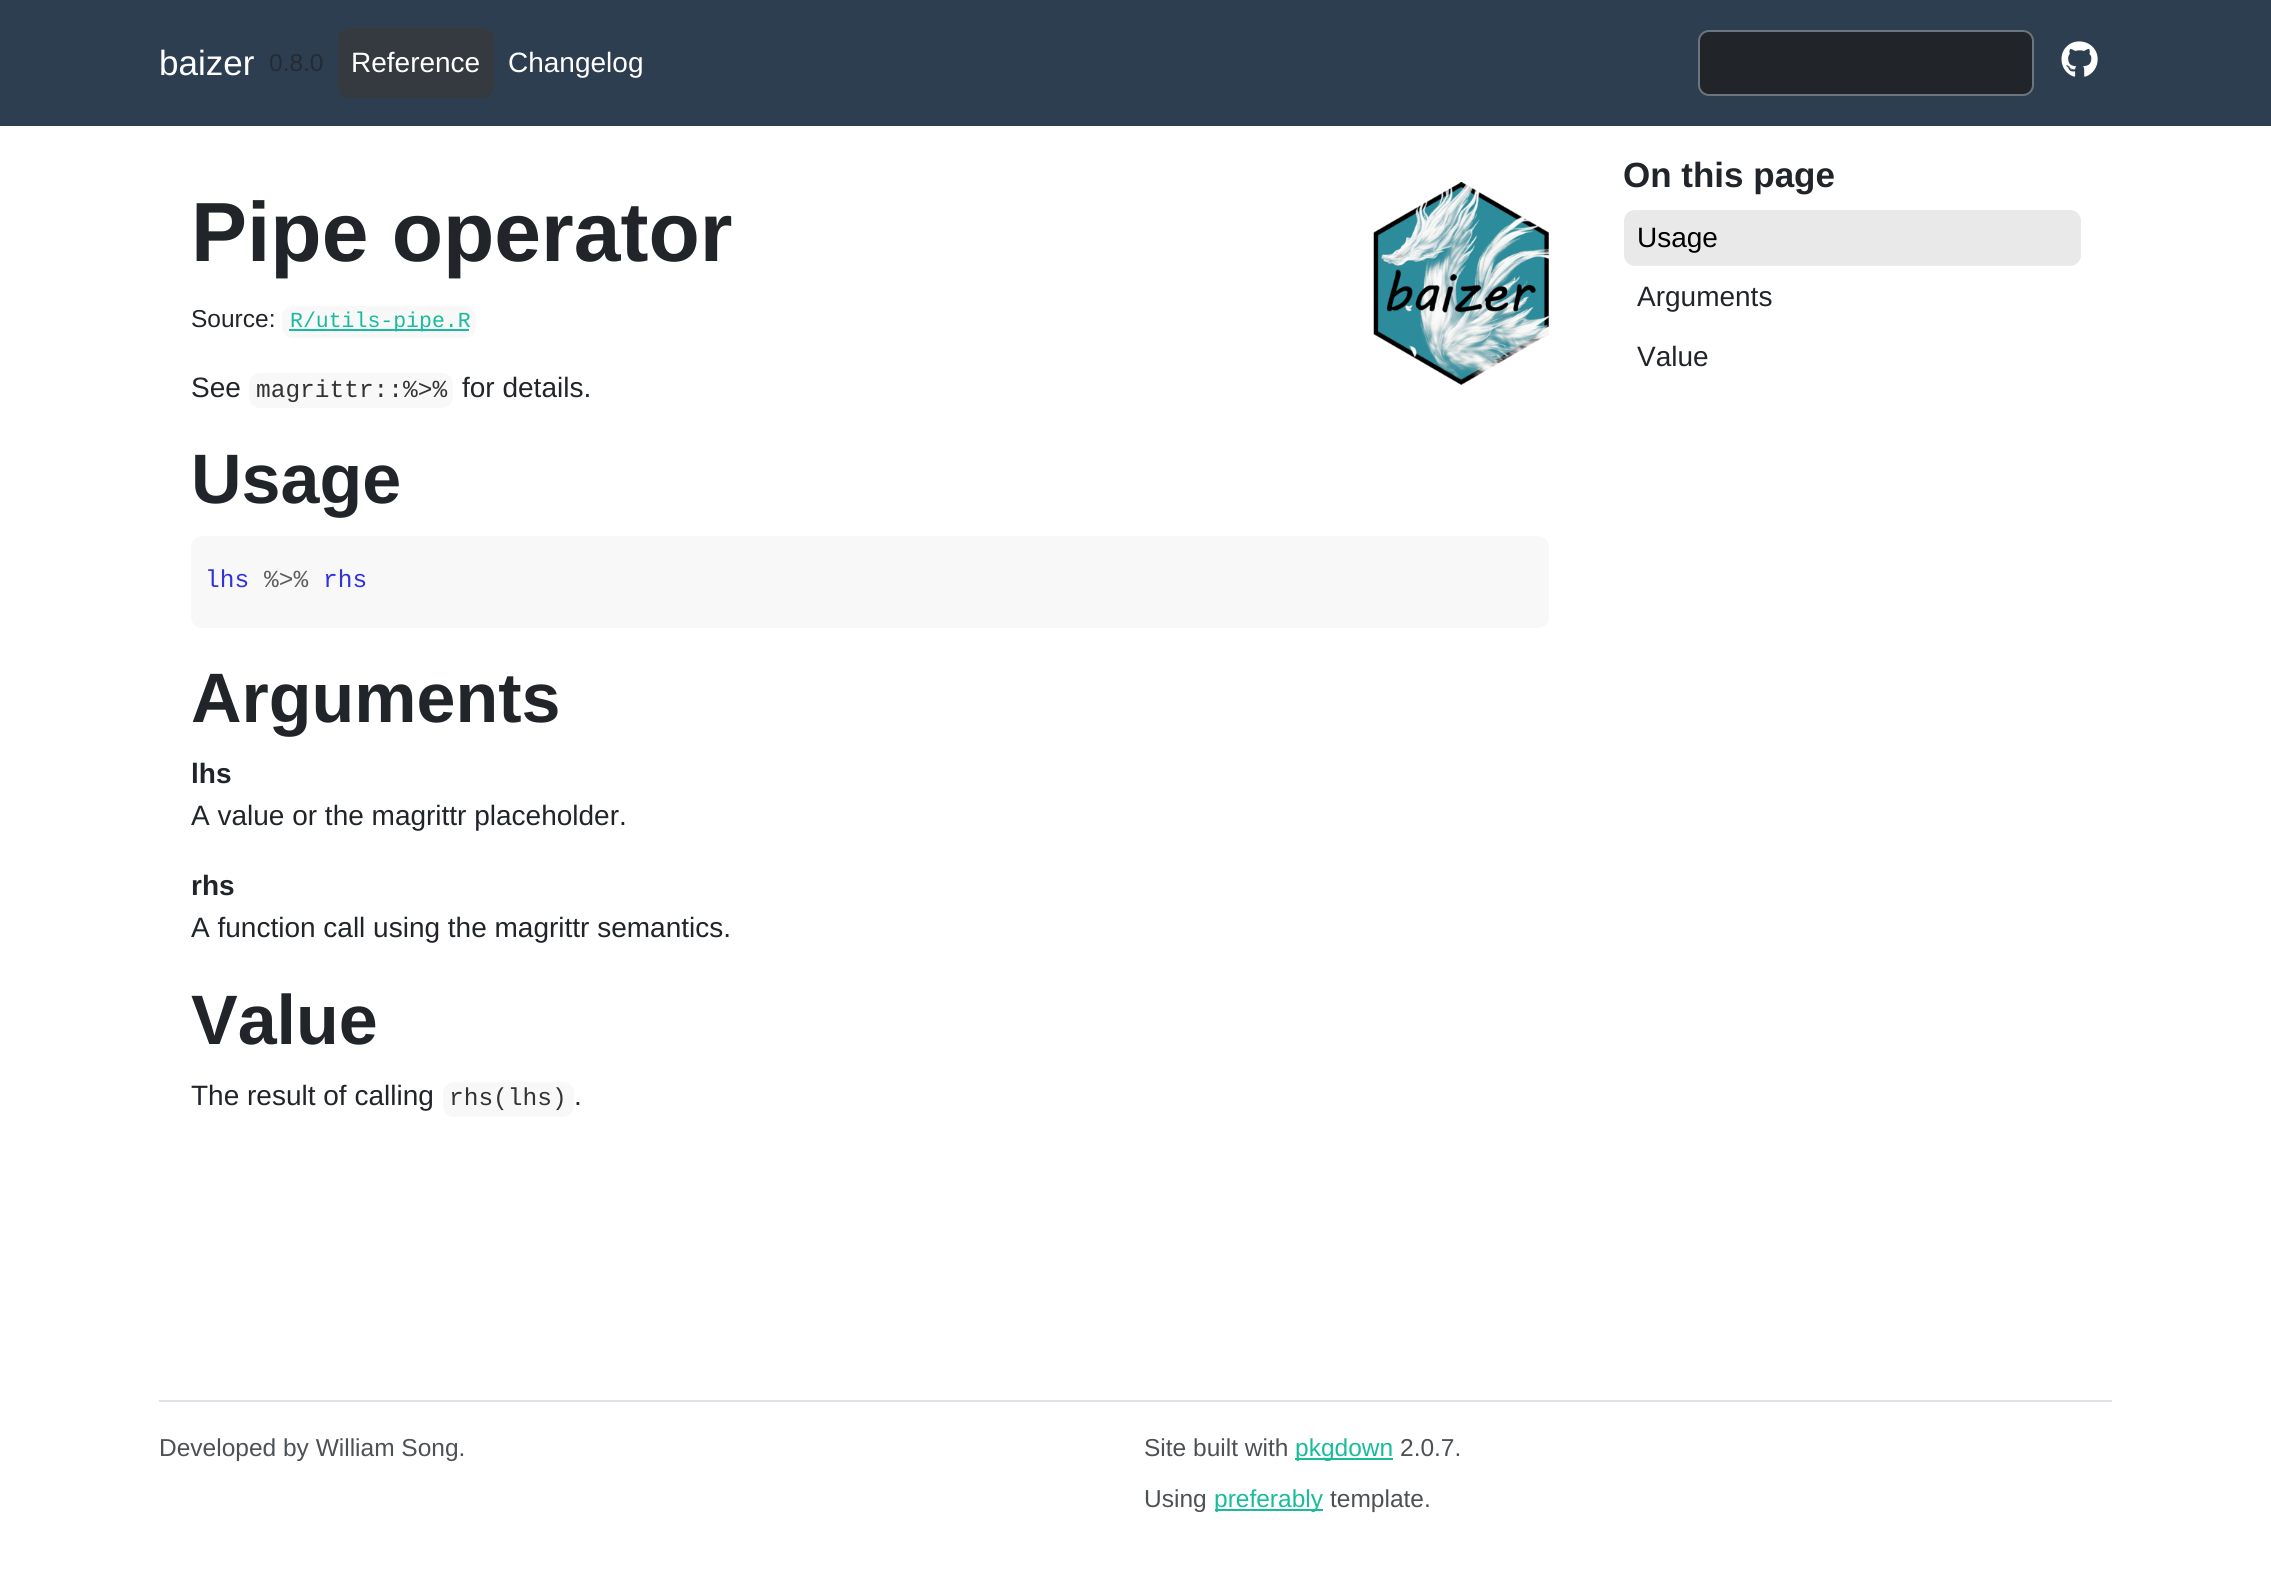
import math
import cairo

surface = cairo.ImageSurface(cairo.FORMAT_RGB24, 2271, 1573)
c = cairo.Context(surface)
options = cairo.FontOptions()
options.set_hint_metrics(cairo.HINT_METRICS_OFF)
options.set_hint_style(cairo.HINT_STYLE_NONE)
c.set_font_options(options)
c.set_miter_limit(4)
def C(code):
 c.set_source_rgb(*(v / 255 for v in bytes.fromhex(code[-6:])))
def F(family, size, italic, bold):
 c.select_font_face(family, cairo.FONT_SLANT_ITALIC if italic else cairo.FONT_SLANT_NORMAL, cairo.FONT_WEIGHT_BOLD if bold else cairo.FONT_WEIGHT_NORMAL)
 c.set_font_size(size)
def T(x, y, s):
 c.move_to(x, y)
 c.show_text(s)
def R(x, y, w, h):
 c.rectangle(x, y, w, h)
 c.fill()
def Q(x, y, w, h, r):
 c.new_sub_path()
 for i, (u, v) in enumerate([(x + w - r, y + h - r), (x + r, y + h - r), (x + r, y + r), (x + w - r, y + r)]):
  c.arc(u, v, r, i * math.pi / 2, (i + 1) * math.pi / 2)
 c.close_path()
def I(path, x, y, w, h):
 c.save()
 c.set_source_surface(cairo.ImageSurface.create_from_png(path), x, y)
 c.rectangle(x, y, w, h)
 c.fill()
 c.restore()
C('ffffff')
c.paint()
C('2c3e50')
R(0,0,2271,126)
F('Liberation Sans',35,0,0)
C('ffffff')
T(159,75,'baizer')
F('Liberation Sans',24.5,0,0)
C('242b33')
T(269,71,'0.8.0')
C('343a40')
Q(338,28,156,70,11)
c.fill()
F('Liberation Sans',28,0,0)
C('ffffff')
T(351,72,'Reference')
T(508,72,'Changelog')
C('212529')
Q(1699,31,334,64,10)
c.fill_preserve()
C('6c757d')
c.stroke()
I('1.png',2061,41,37,36)
F('Liberation Sans',84,0,1)
C('212529')
T(191,261,'Pipe operator')
I('2.png',1373,182,176,203)
F('Liberation Sans',24.5,0,0)
T(191,327,'Source:')
C('f8f8f8')
Q(282,306,194,32,11)
c.fill()
C('18bc9c')
R(289,329,180,2)
F('Liberation Mono',21.5,0,0)
T(290,327,'R/utils-pipe.R')
F('Liberation Sans',28,0,0)
C('212529')
T(191,397,'See')
C('f8f8f8')
Q(249,373,204,35,11)
c.fill()
F('Liberation Mono',24.5,0,0)
C('333333')
T(256,397,'magrittr::%>%')
F('Liberation Sans',28,0,0)
C('212529')
T(462,397,'for details.')
F('Liberation Sans',70,0,1)
T(191,503,'Usage')
C('f8f8f8')
Q(191,536,1358,92,11)
c.fill()
F('Liberation Mono',24.5,0,0)
C('3032da')
T(205,587,'lhs')
C('5e5e5e')
T(264,587,'%>%')
C('3032da')
T(323,587,'rhs')
F('Liberation Sans',70,0,1)
C('212529')
T(191,722,'Arguments')
F('Liberation Sans',28,0,1)
T(191,783,'lhs')
F('Liberation Sans',28,0,0)
T(191,825,'A value or the magrittr placeholder.')
F('Liberation Sans',28,0,1)
T(191,895,'rhs')
F('Liberation Sans',28,0,0)
T(191,937,'A function call using the magrittr semantics.')
F('Liberation Sans',70,0,1)
T(191,1044,'Value')
F('Liberation Sans',28,0,0)
T(191,1105,'The result of calling')
C('f8f8f8')
Q(443,1082,131,35,11)
c.fill()
F('Liberation Mono',24.5,0,0)
C('333333')
T(449,1105,'rhs(lhs)')
F('Liberation Sans',28,0,0)
C('212529')
T(574,1105,'.')
F('Liberation Sans',35,0,1)
T(1623,187,'On this page')
C('e9e9ea')
Q(1624,210,457,56,11)
c.fill()
F('Liberation Sans',28,0,0)
C('000000')
T(1637,247,'Usage')
C('212529')
T(1637,306,'Arguments')
T(1637,366,'Value')
C('dee2e6')
R(159,1400,1953,2)
F('Liberation Sans',24.5,0,0)
C('4d5154')
T(159,1456,'Developed by William Song.')
T(1144,1456,'Site built with')
C('18bc9c')
R(1295,1458,98,2)
T(1295,1456,'pkgdown')
C('4d5154')
T(1400,1456,'2.0.7.')
T(1144,1507,'Using')
C('18bc9c')
R(1215,1509,108,2)
T(1214,1507,'preferably')
C('4d5154')
T(1330,1507,'template.')
surface.write_to_png('o.png')
